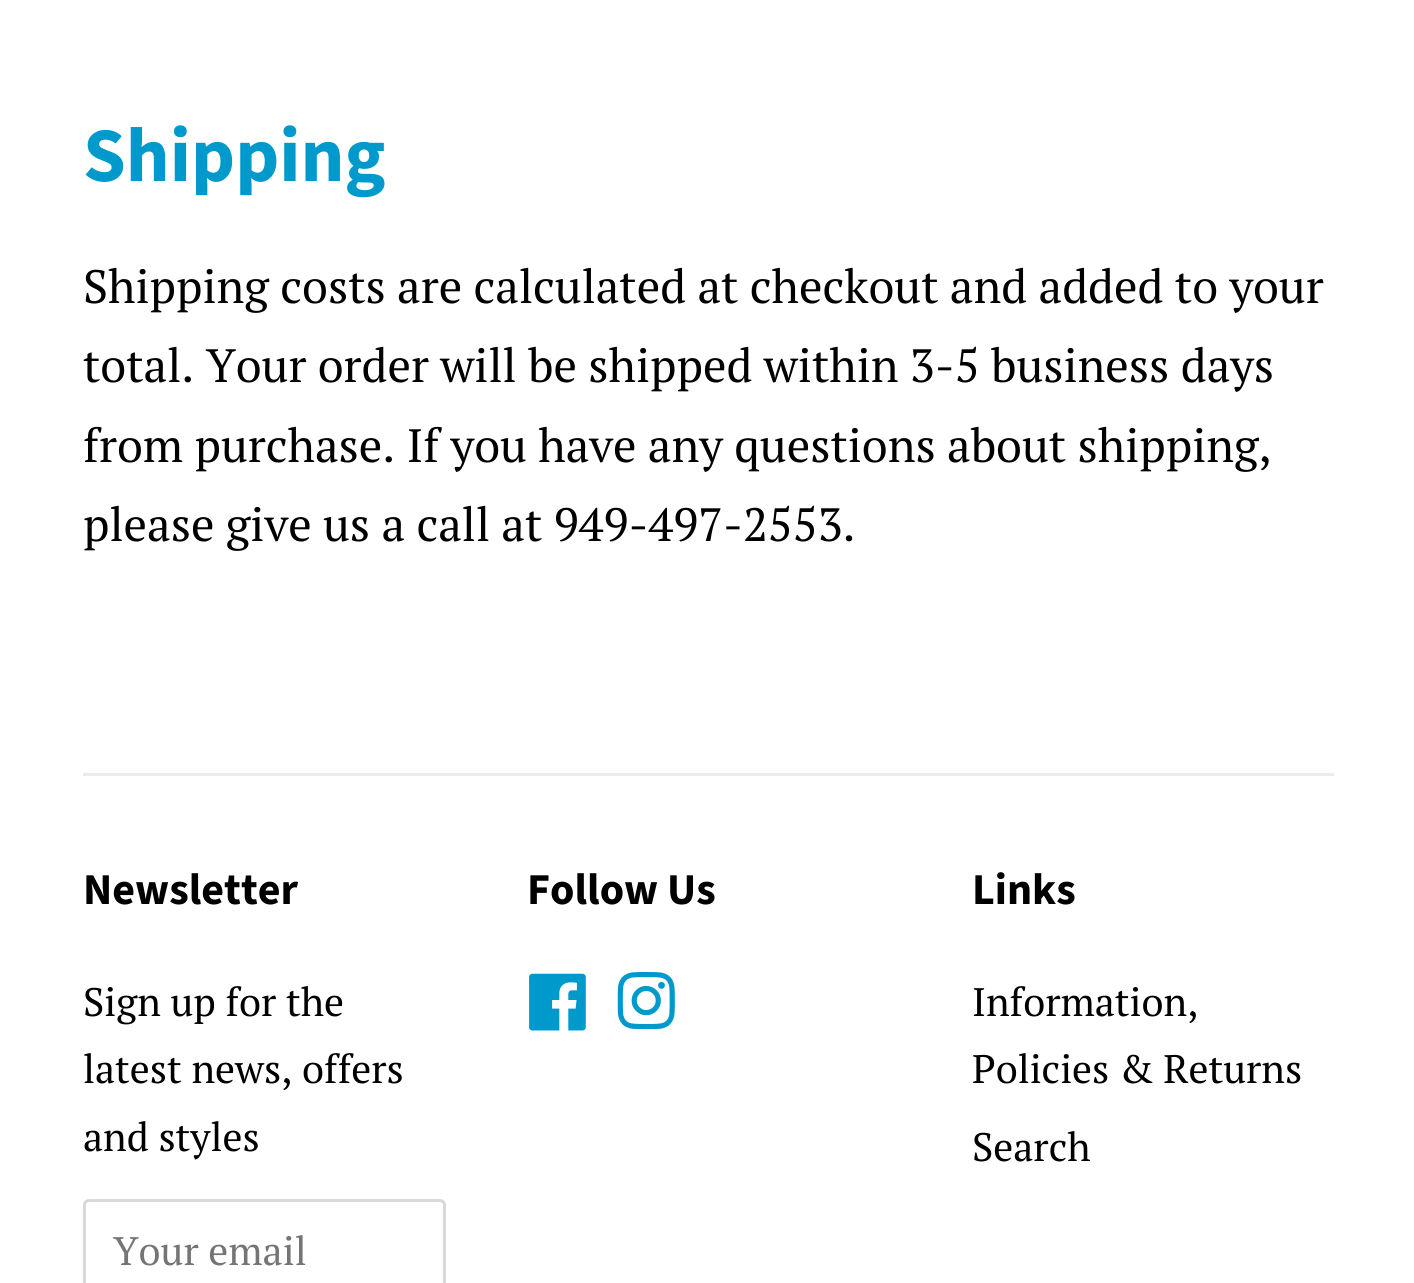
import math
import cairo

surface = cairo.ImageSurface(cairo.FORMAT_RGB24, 1414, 1283)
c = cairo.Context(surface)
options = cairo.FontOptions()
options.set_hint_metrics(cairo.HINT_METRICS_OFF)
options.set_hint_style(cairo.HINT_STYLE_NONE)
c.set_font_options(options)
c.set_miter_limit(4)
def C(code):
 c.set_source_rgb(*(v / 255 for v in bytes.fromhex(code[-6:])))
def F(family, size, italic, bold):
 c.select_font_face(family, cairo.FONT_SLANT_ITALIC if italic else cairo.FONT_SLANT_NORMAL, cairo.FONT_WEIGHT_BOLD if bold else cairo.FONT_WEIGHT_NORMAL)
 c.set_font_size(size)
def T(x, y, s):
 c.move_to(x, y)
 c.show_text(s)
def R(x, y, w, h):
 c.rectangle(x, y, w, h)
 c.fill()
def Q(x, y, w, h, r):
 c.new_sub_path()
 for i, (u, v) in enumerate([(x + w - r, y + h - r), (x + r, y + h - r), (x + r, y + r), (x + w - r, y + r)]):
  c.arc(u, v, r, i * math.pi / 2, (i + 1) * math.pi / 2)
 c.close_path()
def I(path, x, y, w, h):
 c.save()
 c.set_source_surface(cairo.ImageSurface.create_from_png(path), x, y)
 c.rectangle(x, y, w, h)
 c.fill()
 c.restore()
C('ffffff')
c.paint()
F('Source Sans Pro',77,0,1)
C('0099cc')
T(83,181,'Shipping')
F('PT Serif',46.75,0,0)
C('000000')
T(83,303,'Shipping costs are calculated at checkout and added to your')
T(83,382,'total. Your order will be shipped within 3-5 business days')
T(83,462,'from purchase. If you have any questions about shipping,')
T(83,541,'please give us a call at 949-497-2553.')
C('ebebeb')
R(83,773,1251,3)
F('Source Sans Pro',44,0,1)
C('000000')
T(83,904,'Newsletter')
F('PT Serif',39.75,0,0)
T(83,1016,'Sign up for the')
T(83,1083,'latest news, offers')
T(83,1151,'and styles')
Q(84.5,1200.5,360,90,4.5)
C('d9d9d9')
c.set_line_width(3)
c.stroke()
C('757575')
T(113,1265,'Your email')
F('Source Sans Pro',44,0,1)
C('000000')
T(527,904,'Follow Us')
I('1.png',529,973,57,58)
I('2.png',617,972,58,58)
T(972,904,'Links')
F('PT Serif',39.75,0,0)
T(972,1016,'Information,')
T(972,1083,'Policies & Returns')
T(972,1161,'Search')
surface.write_to_png('o.png')
